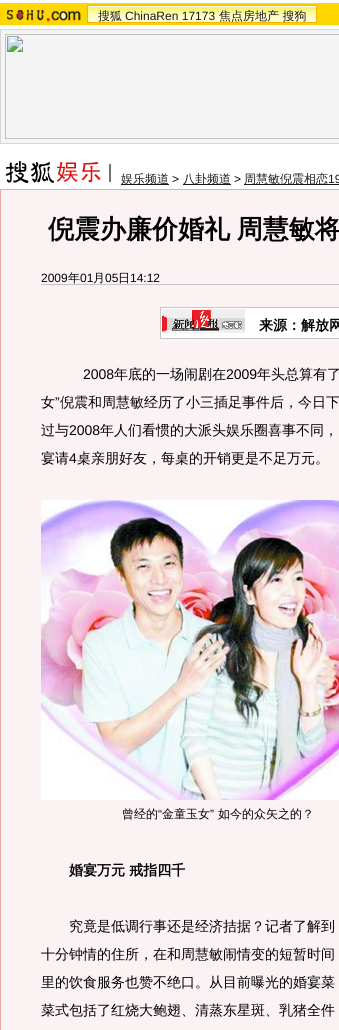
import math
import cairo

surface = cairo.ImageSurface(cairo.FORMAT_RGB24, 339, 1030)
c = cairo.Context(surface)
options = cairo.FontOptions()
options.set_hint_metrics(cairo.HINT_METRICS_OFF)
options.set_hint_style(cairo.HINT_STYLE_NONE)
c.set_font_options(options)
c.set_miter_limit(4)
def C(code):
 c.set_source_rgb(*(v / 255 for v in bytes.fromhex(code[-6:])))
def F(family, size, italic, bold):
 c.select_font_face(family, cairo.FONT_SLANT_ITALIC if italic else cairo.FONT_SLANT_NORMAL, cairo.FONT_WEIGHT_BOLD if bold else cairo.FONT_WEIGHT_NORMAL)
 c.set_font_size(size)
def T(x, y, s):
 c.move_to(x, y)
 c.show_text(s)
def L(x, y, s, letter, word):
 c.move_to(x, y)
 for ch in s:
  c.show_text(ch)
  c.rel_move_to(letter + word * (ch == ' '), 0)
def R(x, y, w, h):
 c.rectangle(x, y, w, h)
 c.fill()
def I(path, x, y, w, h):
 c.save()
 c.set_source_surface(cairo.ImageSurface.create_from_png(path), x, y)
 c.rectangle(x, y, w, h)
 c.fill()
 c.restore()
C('ffffff')
c.paint()
C('ffd700')
R(0,3,339,22)
I('1.png',7,10,74,12)
I('2.png',87,5,230,18)
F('WenQuanYi Zen Hei Medium',12,0,0)
C('191919')
T(98,20,'搜狐')
F('Liberation Sans',12,0,0)
T(125,20,'ChinaRen 17173')
F('WenQuanYi Zen Hei Medium',12,0,0)
T(219,20,'焦点房地产 搜狗')
C('f4f4f4')
c.rectangle(.5,29.5,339,114)
c.fill_preserve()
C('d7d7d7')
c.set_line_width(1)
c.stroke()
I('3.png',5,34,334,105)
I('4.png',5,161,106,22)
C('191919')
R(121,184,48,1)
T(121,183,'娱乐频道')
F('Liberation Sans',12,0,0)
C('000000')
T(172,183,'>')
C('191919')
R(183,184,48,1)
F('WenQuanYi Zen Hei Medium',12,0,0)
T(183,183,'八卦频道')
F('Liberation Sans',12,0,0)
C('000000')
T(234,183,'>')
C('191919')
R(244,184,95,1)
F('WenQuanYi Zen Hei Medium',12,0,0)
T(244,183,'周慧敏倪震相恋')
F('Liberation Sans',12,0,0)
T(328,183,'19')
C('fbf2f4')
c.rectangle(.5,189.5,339,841)
c.fill_preserve()
C('e9a8a8')
c.stroke()
F('WenQuanYi Zen Hei',26,0,1)
C('000000')
L(48,238,'倪震办廉价婚礼 周慧敏将',0,-1)
C('c5c5c5')
R(41,284,298,1)
F('Liberation Sans',12,0,0)
C('000000')
T(41,282,'2009')
F('WenQuanYi Zen Hei Medium',12,0,0)
T(68,282,'年')
F('Liberation Sans',12,0,0)
T(80,282,'01')
F('WenQuanYi Zen Hei Medium',12,0,0)
T(93,282,'月')
F('Liberation Sans',12,0,0)
T(105,282,'05')
F('WenQuanYi Zen Hei Medium',12,0,0)
T(118,282,'日')
F('Liberation Sans',12,0,0)
T(130,282,'14:12')
C('ffffff')
c.rectangle(160.5,307.5,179,31)
c.fill_preserve()
C('c5c5c5')
c.stroke()
I('5.png',162,309,83,24)
F('WenQuanYi Zen Hei',14,0,1)
C('000000')
T(259,330,'来源：解放网')
F('Liberation Sans',14,0,0)
T(83,379,'2008')
F('WenQuanYi Zen Hei Medium',14,0,0)
T(114,379,'年底的一场闹剧在')
F('Liberation Sans',14,0,0)
T(226,379,'2009')
F('WenQuanYi Zen Hei Medium',14,0,0)
T(257,379,'年头总算有了')
T(41,407,'女')
F('Liberation Sans',14,0,0)
T(55,407,'”')
F('WenQuanYi Zen Hei Medium',14,0,0)
T(60,407,'倪震和周慧敏经历了小三插足事件后，今日下')
T(41,435,'过与')
F('Liberation Sans',14,0,0)
T(69,435,'2008')
F('WenQuanYi Zen Hei Medium',14,0,0)
T(100,435,'年人们看惯的大派头娱乐圈喜事不同，')
T(41,463,'宴请')
F('Liberation Sans',14,0,0)
T(69,463,'4')
F('WenQuanYi Zen Hei Medium',14,0,0)
T(77,463,'桌亲朋好友，每桌的开销更是不足万元。')
I('6.png',41,500,298,300)
F('WenQuanYi Zen Hei Medium',12,0,0)
T(122,818,'曾经的')
F('Liberation Sans',12,0,0)
T(158,818,'“')
F('WenQuanYi Zen Hei Medium',12,0,0)
T(162,818,'金童玉女')
F('Liberation Sans',12,0,0)
T(210,818,'”')
F('WenQuanYi Zen Hei Medium',12,0,0)
T(218,818,'如今的众矢之的？')
F('WenQuanYi Zen Hei',14,0,1)
T(69,875,'婚宴万元 戒指四千')
F('WenQuanYi Zen Hei Medium',14,0,0)
T(69,931,'究竟是低调行事还是经济拮据？记者了解到')
T(41,959,'十分钟情的住所，在和周慧敏闹情变的短暂时间')
T(41,987,'里的饮食服务也赞不绝口。从目前曝光的婚宴菜')
T(41,1015,'菜式包括了红烧大鲍翅、清蒸东星斑、乳猪全件')
surface.write_to_png('o.png')
